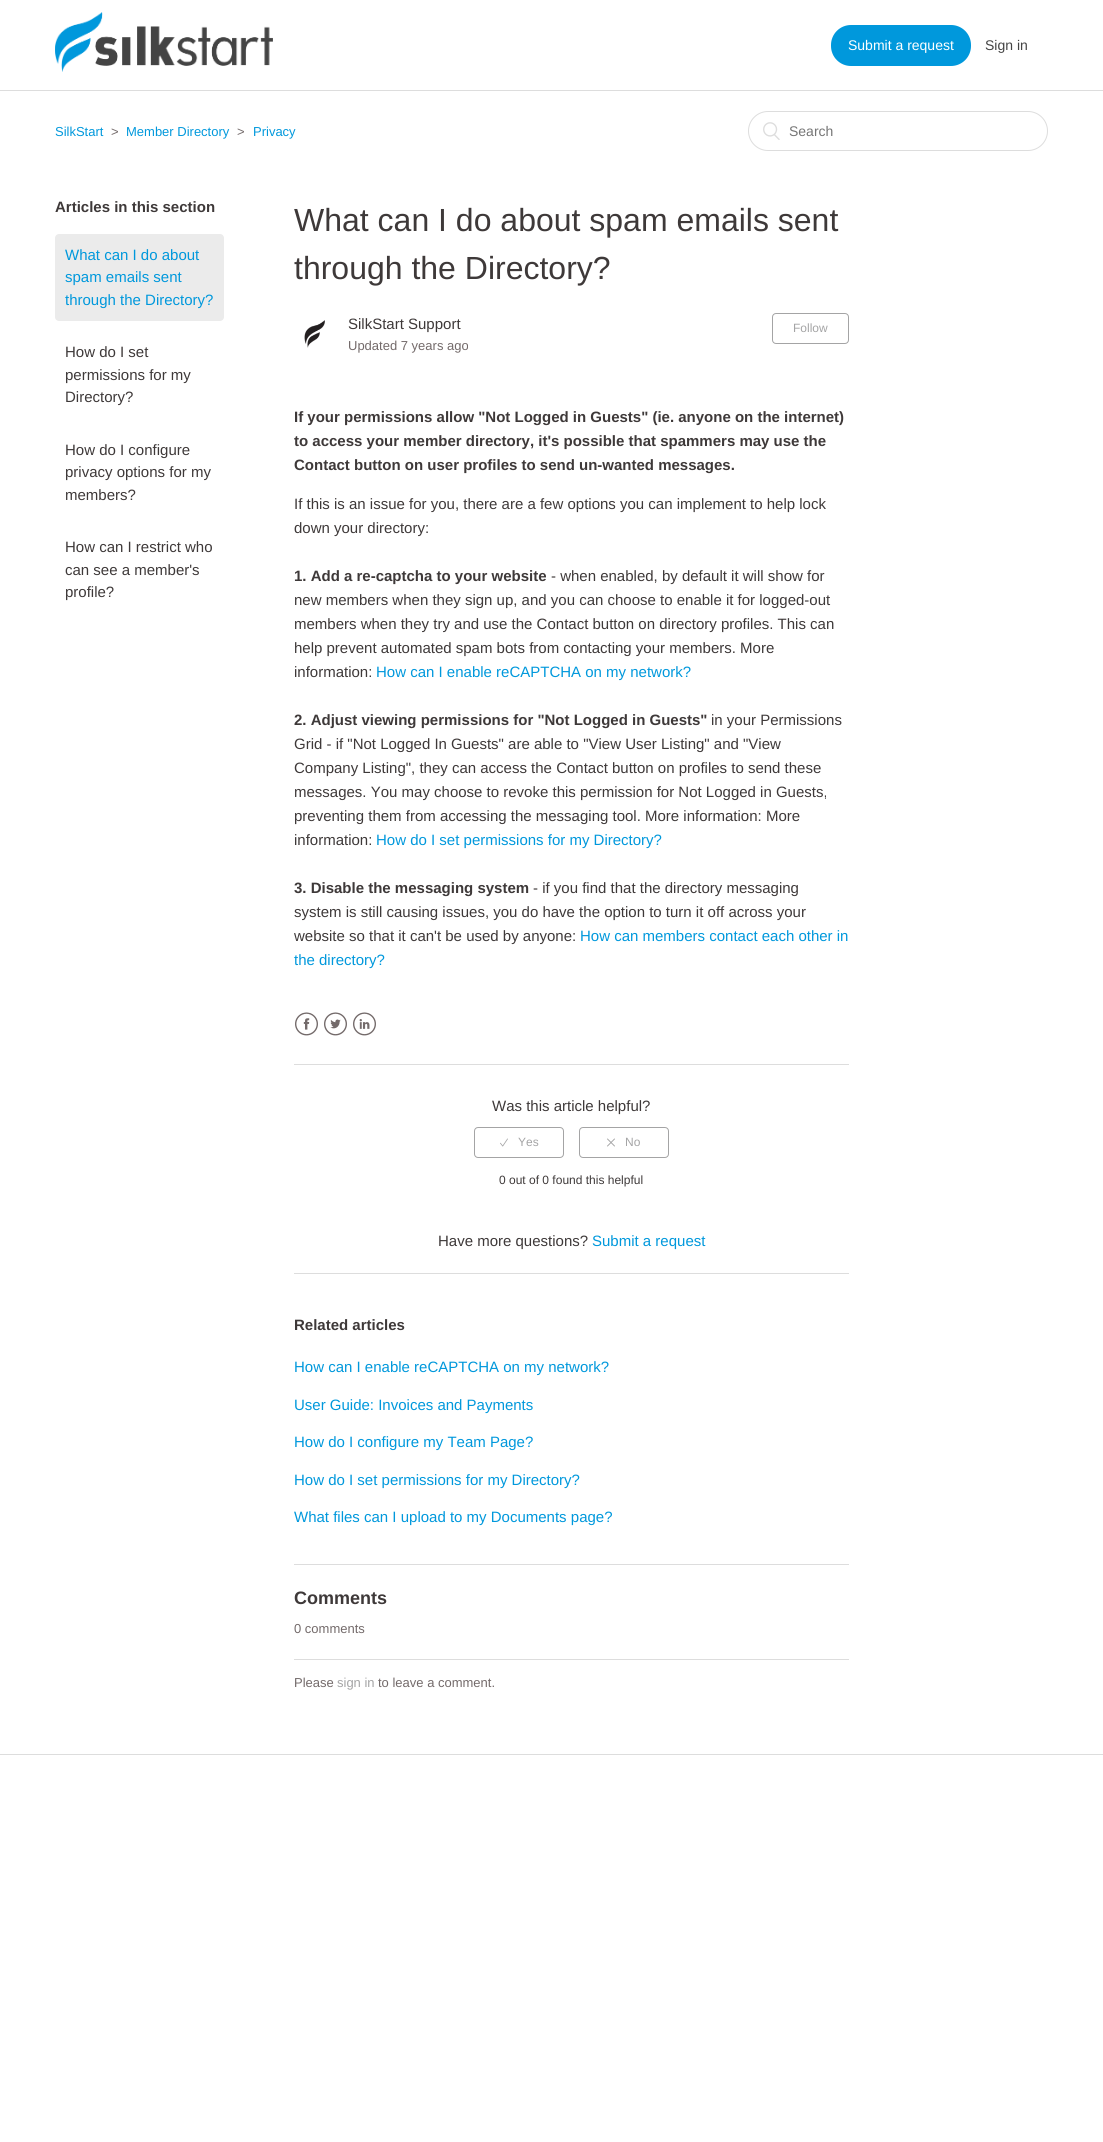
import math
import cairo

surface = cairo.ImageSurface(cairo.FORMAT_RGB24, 1103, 2142)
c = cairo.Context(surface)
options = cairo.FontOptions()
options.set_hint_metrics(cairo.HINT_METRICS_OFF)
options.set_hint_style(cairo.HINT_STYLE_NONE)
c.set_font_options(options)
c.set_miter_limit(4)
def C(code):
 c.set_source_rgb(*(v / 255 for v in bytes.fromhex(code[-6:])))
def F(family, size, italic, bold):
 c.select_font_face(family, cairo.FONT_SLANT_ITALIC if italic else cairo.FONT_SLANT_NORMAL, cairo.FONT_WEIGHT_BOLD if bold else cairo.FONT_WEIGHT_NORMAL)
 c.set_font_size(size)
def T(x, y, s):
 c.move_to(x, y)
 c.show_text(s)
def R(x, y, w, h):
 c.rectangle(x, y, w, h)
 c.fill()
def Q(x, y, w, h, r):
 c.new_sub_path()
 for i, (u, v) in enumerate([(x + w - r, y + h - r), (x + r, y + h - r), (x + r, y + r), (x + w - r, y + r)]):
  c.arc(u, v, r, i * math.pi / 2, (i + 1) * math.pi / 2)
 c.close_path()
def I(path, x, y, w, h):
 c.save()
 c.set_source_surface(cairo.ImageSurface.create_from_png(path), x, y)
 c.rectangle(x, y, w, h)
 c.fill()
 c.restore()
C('ffffff')
c.paint()
I('1.png',55,12,218,60)
C('0098dc')
Q(831,25,140,41,20)
c.fill()
F('Liberation Sans',14,0,0)
C('ffffff')
T(848,50,'Submit a request')
C('444444')
T(985,50,'Sign in')
C('dddddd')
R(0,90,1103,1)
F('Liberation Sans',13,0,0)
C('0098dc')
T(55,136,'SilkStart')
C('736a6a')
T(111,136,'>')
C('0098dc')
T(126,136,'Member Directory')
C('736a6a')
T(237,136,'>')
C('0098dc')
T(253,136,'Privacy')
Q(748.5,111.5,299,39,19.5)
C('dddddd')
c.set_line_width(1)
c.stroke()
I('2.png',763,122,17,18)
F('Liberation Sans',14,0,0)
C('757575')
T(789,136,'Search')
F('Liberation Sans',15,0,1)
C('3e3939')
T(55,212,'Articles in this section')
C('ebebeb')
Q(55,234,169,87,4)
c.fill()
F('Liberation Sans',15,0,0)
C('0098dc')
T(65,260,'What can I do about')
T(65,282,'spam emails sent')
T(65,305,'through the Directory?')
C('3e3939')
T(65,357,'How do I set')
T(65,380,'permissions for my')
T(65,402,'Directory?')
T(65,455,'How do I configure')
T(65,477,'privacy options for my')
T(65,500,'members?')
T(65,552,'How can I restrict who')
T(65,575,'can see a member\'s')
T(65,597,'profile?')
F('Liberation Sans',32,0,0)
T(294,231,'What can I do about spam emails sent')
T(294,279,'through the Directory?')
I('3.png',304,320,21,28)
F('Liberation Sans',15,0,0)
T(348,329,'SilkStart Support')
F('Liberation Sans',13,0,0)
C('736a6a')
T(348,350,'Updated 7 years ago')
Q(772.5,313.5,76,30,3.5)
C('a4a4a5')
c.stroke()
F('Liberation Sans',12,0,0)
T(793,332,'Follow')
F('Liberation Sans',15,0,1)
C('3e3939')
T(294,422,'If your permissions allow "Not Logged in Guests" (ie. anyone on the internet)')
T(294,446,'to access your member directory, it\'s possible that spammers may use the')
T(294,470,'Contact button on user profiles to send un-wanted messages.')
F('Liberation Sans',15,0,0)
T(294,509,'If this is an issue for you, there are a few options you can implement to help lock')
T(294,533,'down your directory:')
F('Liberation Sans',15,0,1)
T(294,581,'1. Add a re-captcha to your website')
F('Liberation Sans',15,0,0)
T(551,581,'- when enabled, by default it will show for')
T(294,605,'new members when they sign up, and you can choose to enable it for logged-out')
T(294,629,'members when they try and use the Contact button on directory profiles. This can')
T(294,653,'help prevent automated spam bots from contacting your members. More')
T(294,677,'information:')
C('0098dc')
T(376,677,'How can I enable reCAPTCHA on my network?')
F('Liberation Sans',15,0,1)
C('3e3939')
T(294,725,'2. Adjust viewing permissions for "Not Logged in Guests"')
F('Liberation Sans',15,0,0)
T(711,725,'in your Permissions')
T(294,749,'Grid - if "Not Logged In Guests" are able to "View User Listing" and "View')
T(294,773,'Company Listing", they can access the Contact button on profiles to send these')
T(294,797,'messages. You may choose to revoke this permission for Not Logged in Guests,')
T(294,821,'preventing them from accessing the messaging tool. More information: More')
T(294,845,'information:')
C('0098dc')
T(376,845,'How do I set permissions for my Directory?')
F('Liberation Sans',15,0,1)
C('3e3939')
T(294,893,'3. Disable the messaging system')
F('Liberation Sans',15,0,0)
T(533,893,'- if you find that the directory messaging')
T(294,917,'system is still causing issues, you do have the option to turn it off across your')
T(294,941,'website so that it can\'t be used by anyone:')
C('0098dc')
T(580,941,'How can members contact each other in')
T(294,965,'the directory?')
I('4.png',295,1012,23,24)
I('5.png',324,1012,23,24)
I('6.png',353,1012,23,24)
C('dddddd')
R(294,1064,555,1)
C('3e3939')
T(492,1111,'Was this article helpful?')
Q(474.5,1127.5,89,30,3.5)
C('a4a4a5')
c.stroke()
I('7.png',500,1138,8,9)
F('Liberation Sans',12,0,0)
T(518,1146,'Yes')
Q(579.5,1127.5,89,30,3.5)
c.stroke()
I('8.png',607,1138,8,9)
T(625,1146,'No')
C('3e3939')
T(499,1184,'0 out of 0 found this helpful')
F('Liberation Sans',15,0,0)
T(438,1246,'Have more questions?')
C('0098dc')
T(592,1246,'Submit a request')
C('dddddd')
R(294,1273,555,1)
F('Liberation Sans',15,0,1)
C('3e3939')
T(294,1330,'Related articles')
F('Liberation Sans',15,0,0)
C('0098dc')
T(294,1372,'How can I enable reCAPTCHA on my network?')
T(294,1410,'User Guide: Invoices and Payments')
T(294,1447,'How do I configure my Team Page?')
T(294,1485,'How do I set permissions for my Directory?')
T(294,1522,'What files can I upload to my Documents page?')
C('dddddd')
R(294,1564,555,1)
R(294,1659,555,1)
F('Liberation Sans',18,0,1)
C('3e3939')
T(294,1604,'Comments')
F('Liberation Sans',13,0,0)
C('736a6a')
T(294,1633,'0 comments')
T(294,1687,'Please')
C('a4a4a5')
T(337,1687,'sign in')
C('736a6a')
T(378,1687,'to leave a comment.')
C('dddddd')
R(0,1754,1103,1)
surface.write_to_png('o.png')
